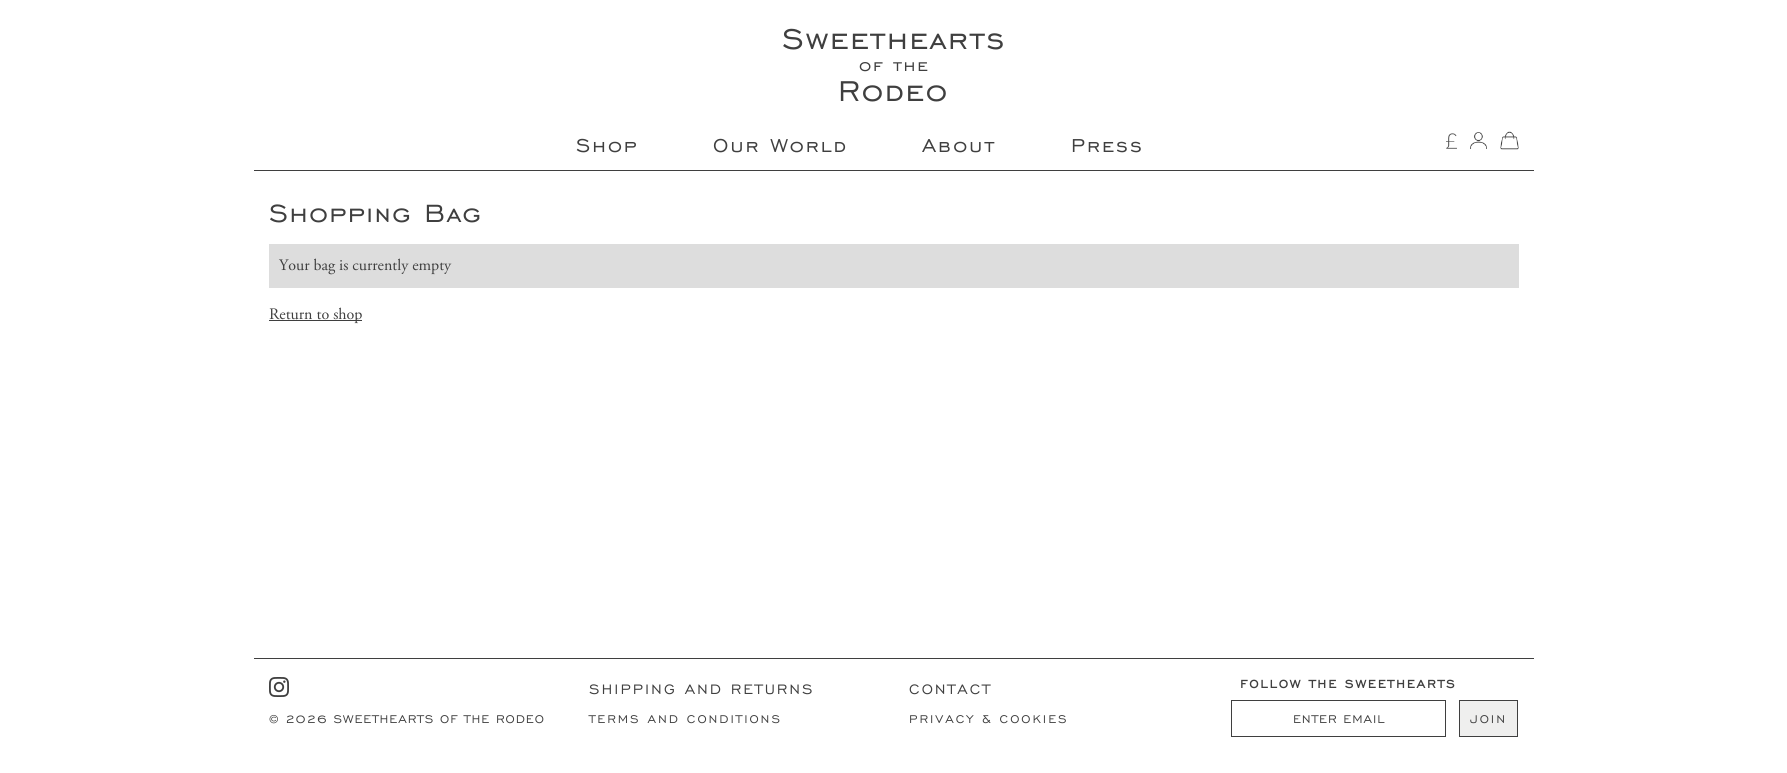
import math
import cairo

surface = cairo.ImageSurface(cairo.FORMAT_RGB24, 1787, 773)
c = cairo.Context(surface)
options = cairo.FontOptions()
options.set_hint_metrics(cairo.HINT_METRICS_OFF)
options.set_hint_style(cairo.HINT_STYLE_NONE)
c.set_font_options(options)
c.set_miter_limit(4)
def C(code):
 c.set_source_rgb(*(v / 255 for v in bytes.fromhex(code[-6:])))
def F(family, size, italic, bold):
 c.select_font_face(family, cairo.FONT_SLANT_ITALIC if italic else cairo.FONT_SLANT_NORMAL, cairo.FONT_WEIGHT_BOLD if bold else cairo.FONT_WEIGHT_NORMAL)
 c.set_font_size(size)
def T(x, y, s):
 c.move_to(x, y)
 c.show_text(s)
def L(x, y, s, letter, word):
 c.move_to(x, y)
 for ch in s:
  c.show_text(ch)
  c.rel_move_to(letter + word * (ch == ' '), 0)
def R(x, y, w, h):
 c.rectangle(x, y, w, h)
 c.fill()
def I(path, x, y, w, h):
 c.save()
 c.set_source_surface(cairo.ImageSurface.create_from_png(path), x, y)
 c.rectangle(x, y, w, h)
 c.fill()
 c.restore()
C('ffffff')
c.paint()
F('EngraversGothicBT',36.75,0,0)
C('3f3f3f')
L(782,49,'Sweethearts',1.75,0)
F('EngraversGothicBT',21,0,0)
L(859,71,'of the',1.75,0)
F('EngraversGothicBT',36.75,0,0)
L(838,101,'Rodeo',1.75,0)
F('EngraversGothicBT',24,0,0)
L(576,152,'Shop',2,0)
L(713,152,'Our World',2,0)
L(922,152,'About',2,0)
L(1071,152,'Press',2,0)
I('1.png',1446,133,11,16)
I('2.png',1470,132,17,17)
I('3.png',1500,131,19,19)
R(254,170,1280,1)
F('EngraversGothicBT',32,0,0)
L(269,222,'Shopping Bag',1.5,0)
C('dddddd')
R(269,244,1250,44)
F('Adobe Garamond',16,0,0)
C('3f3f3f')
T(279,270,'Your bag is currently empty')
R(269,320,93,1)
T(269,319,'Return to shop')
R(254,658,1280,1)
I('4.png',269,677,20,20)
F('EngraversGothicBT',14.4,0,0)
L(269,723,'© 2026 SWEETHEARTS OF THE RODEO',1,0)
F('EngraversGothicBT',17.6,0,0)
L(589,694,'SHIPPING AND RETURNS',2,0)
F('EngraversGothicBT',14.4,0,0)
L(589,723,'TERMS AND CONDITIONS',2,0)
F('EngraversGothicBT',17.6,0,0)
L(909,694,'CONTACT',2,0)
F('EngraversGothicBT',14.4,0,0)
L(909,723,'PRIVACY & COOKIES',2,0)
F('EngraversGothicBT',14.4,0,1)
L(1240,688,'FOLLOW THE SWEETHEARTS',2,0)
c.rectangle(1231.5,700.5,214,36)
c.set_line_width(1)
c.stroke()
F('EngraversGothicBT',14.4,0,0)
L(1293,723,'ENTER EMAIL',1,0)
C('efefee')
c.rectangle(1459.5,700.5,58,36)
c.fill_preserve()
C('3f3f3f')
c.stroke()
L(1470,723,'JOIN',2,0)
surface.write_to_png('o.png')
